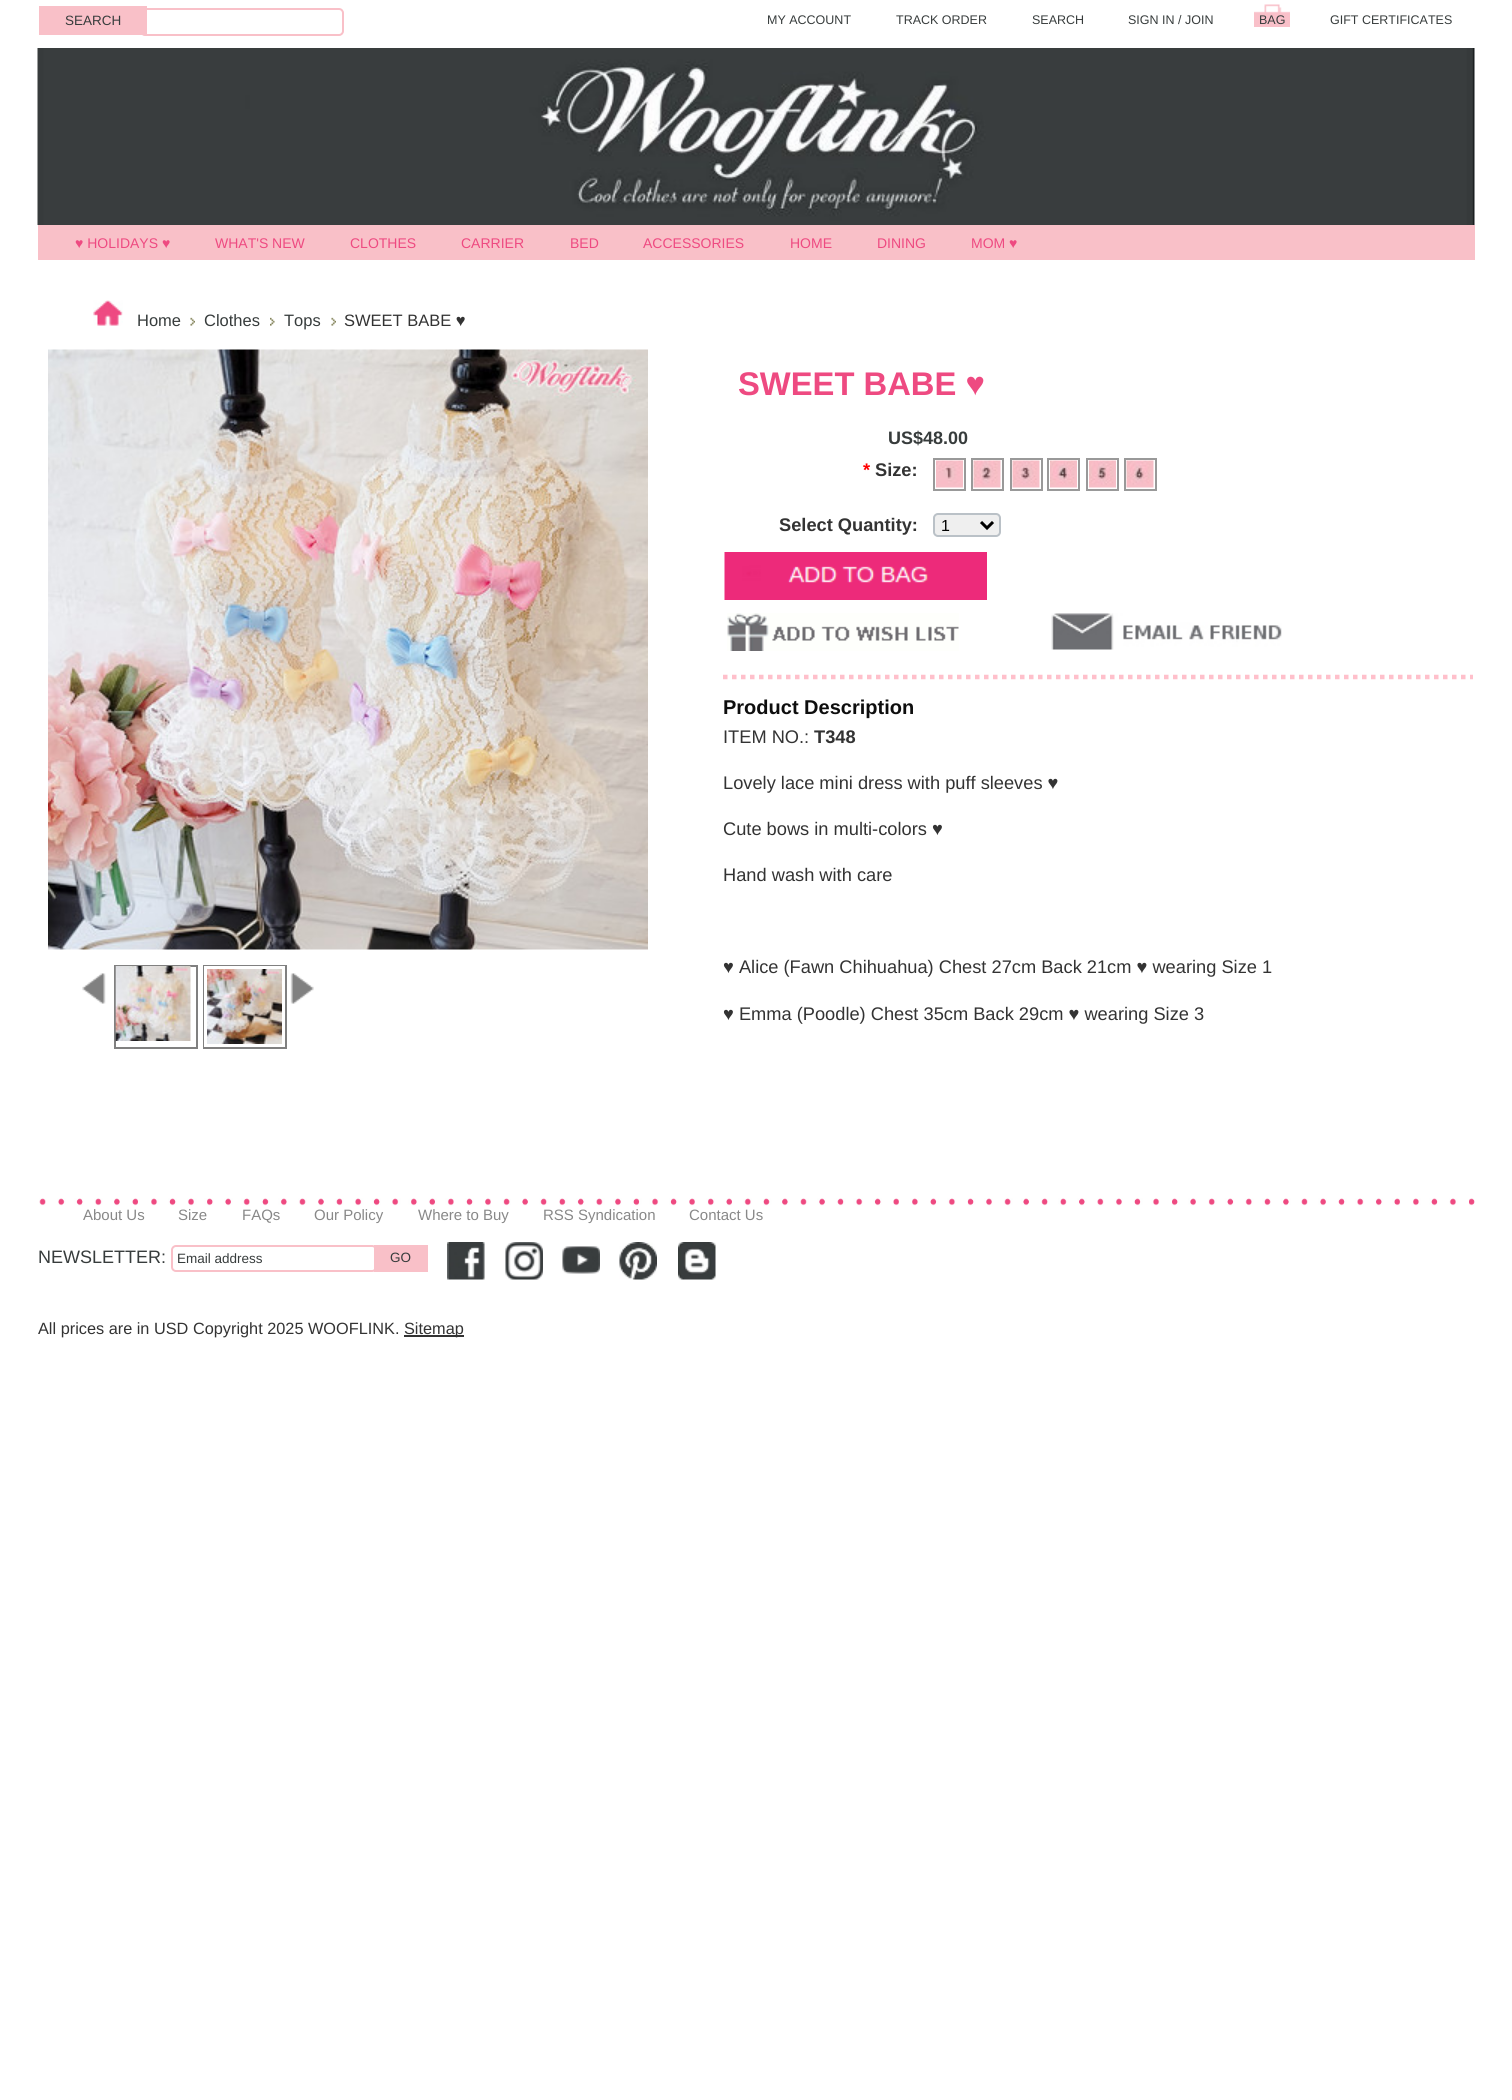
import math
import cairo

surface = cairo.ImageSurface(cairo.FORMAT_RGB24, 1512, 2100)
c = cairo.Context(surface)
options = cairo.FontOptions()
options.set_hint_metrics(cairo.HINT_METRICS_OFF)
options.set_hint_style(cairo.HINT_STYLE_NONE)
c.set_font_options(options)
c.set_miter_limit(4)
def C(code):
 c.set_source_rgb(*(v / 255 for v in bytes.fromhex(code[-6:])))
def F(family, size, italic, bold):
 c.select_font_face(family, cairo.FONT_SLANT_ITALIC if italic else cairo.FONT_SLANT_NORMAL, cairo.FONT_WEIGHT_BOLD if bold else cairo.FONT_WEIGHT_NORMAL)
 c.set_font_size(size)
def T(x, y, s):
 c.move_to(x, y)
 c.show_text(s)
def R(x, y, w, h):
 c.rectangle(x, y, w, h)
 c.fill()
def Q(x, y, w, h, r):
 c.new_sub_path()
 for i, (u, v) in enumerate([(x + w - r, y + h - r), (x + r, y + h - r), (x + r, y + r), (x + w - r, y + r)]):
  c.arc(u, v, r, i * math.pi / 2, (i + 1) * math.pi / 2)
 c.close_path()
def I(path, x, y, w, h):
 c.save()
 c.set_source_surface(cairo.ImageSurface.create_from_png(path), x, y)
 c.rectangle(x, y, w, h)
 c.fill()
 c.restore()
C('ffffff')
c.paint()
Q(141,9,202,26,4)
C('f9c0c8')
c.stroke()
R(39,6,108,29)
F('Liberation Sans',13.5,0,0)
C('373c3c')
T(65,25,'SEARCH')
F('Liberation Sans',12.5,0,0)
T(767,24,'MY ACCOUNT')
T(896,24,'TRACK ORDER')
T(1032,24,'SEARCH')
T(1128,24,'SIGN IN / JOIN')
I('1.png',1254,4,36,23)
T(1259,24,'BAG')
T(1330,24,'GIFT CERTIFICATES')
I('2.png',37,48,1438,177)
C('f9c0c8')
R(38,225,1437,35)
F('Liberation Sans',14,0,0)
C('ee4a81')
T(75,248,'♥ HOLIDAYS ♥')
T(215,248,'WHAT\'S NEW')
T(350,248,'CLOTHES')
T(461,248,'CARRIER')
T(570,248,'BED')
T(643,248,'ACCESSORIES')
T(790,248,'HOME')
T(877,248,'DINING')
T(971,248,'MOM ♥')
I('3.png',93,300,30,26)
F('Liberation Sans',16.5,0,0)
C('373c3c')
T(137,326,'Home')
I('4.png',190,317,5,9)
T(204,326,'Clothes')
I('5.png',270,317,5,9)
T(284,326,'Tops')
I('4.png',331,317,5,9)
C('333333')
T(344,326,'SWEET BABE ♥')
I('6.png',48,349,600,601)
I('7.png',82,973,24,31)
c.rectangle(115,966,82,82)
C('808080')
c.stroke()
I('8.png',115,966,76,75)
c.rectangle(204,966,82,82)
c.stroke()
c.rectangle(205.5,967.5,78,78)
C('ffffff')
c.set_line_width(3)
c.stroke()
I('9.png',207,969,75,75)
I('10.png',290,973,24,31)
F('Liberation Sans',32.75,0,1)
C('ee4a81')
T(738,395,'SWEET BABE ♥')
F('Liberation Sans',18,0,1)
C('373c3c')
T(888,444,'US$48.00')
F('Liberation Sans',18.25,0,1)
C('ff0000')
T(863,476,'*')
C('333333')
T(875,476,'Size:')
c.rectangle(934,459,31,31)
C('999999')
c.set_line_width(2)
c.stroke()
I('11.png',936,460,27,28)
c.rectangle(972,459,31,31)
c.stroke()
I('12.png',973,460,28,28)
c.rectangle(1011,459,31,31)
c.stroke()
I('13.png',1012,460,28,28)
c.rectangle(1048,459,31,31)
c.stroke()
I('14.png',1050,460,27,28)
c.rectangle(1087,459,31,31)
c.stroke()
I('15.png',1089,460,27,28)
c.rectangle(1125,459,31,31)
c.stroke()
I('16.png',1126,460,28,28)
C('333333')
T(779,531,'Select Quantity:')
I('17.png',724,552,263,48)
C('efefef')
Q(934,514,66,22,4)
c.fill_preserve()
C('bac1c7')
c.stroke()
c.new_path()
c.move_to(981,522)
c.line_to(987,528)
c.line_to(993,522)
C('000000')
c.set_line_width(3)
c.stroke()
F('Liberation Sans',16,0,0)
T(941,531,'1')
I('18.png',727,613,232,38)
I('19.png',1051,613,231,37)
c.new_path()
c.move_to(723,677)
c.line_to(1473,677)
C('ffc0cb')
c.set_line_width(4.5)
c.set_dash([4.5,4.5])
c.stroke()
F('Liberation Sans',20,0,1)
C('0e0e0e')
T(723,714,'Product Description')
F('Liberation Sans',18.25,0,0)
C('333333')
T(723,743,'ITEM NO.:')
F('Liberation Sans',18.25,0,1)
T(814,743,'T348')
F('Liberation Sans',18.25,0,0)
T(723,789,'Lovely lace mini dress with puff sleeves ♥')
T(723,835,'Cute bows in multi-colors ♥')
T(723,881,'Hand wash with care')
T(723,973,'♥ Alice (Fawn Chihuahua) Chest 27cm Back 21cm ♥ wearing Size 1')
T(723,1020,'♥ Emma (Poodle) Chest 35cm Back 29cm ♥ wearing Size 3')
I('20.png',39,1198,1436,8)
F('Liberation Sans',15,0,0)
C('888888')
T(83,1220,'About Us')
T(178,1220,'Size')
T(242,1220,'FAQs')
T(314,1220,'Our Policy')
T(418,1220,'Where to Buy')
T(543,1220,'RSS Syndication')
T(689,1220,'Contact Us')
F('Liberation Sans',18,0,0)
C('373c3c')
T(38,1263,'NEWSLETTER:')
Q(172,1246,204,25,4)
C('f9c0c8')
c.set_line_width(2)
c.set_dash([])
c.stroke()
F('Liberation Sans',13.5,0,0)
C('373c3c')
T(177,1263,'Email address')
C('f9c0c8')
R(374,1245,54,27)
C('373c3c')
T(390,1262,'GO')
I('21.png',447,1242,38,38)
I('22.png',505,1242,38,38)
I('23.png',562,1246,38,28)
I('24.png',619,1242,38,38)
I('25.png',678,1242,38,38)
F('Liberation Sans',16.3,0,0)
C('333333')
T(38,1334,'All prices are in USD Copyright 2025 WOOFLINK.')
R(404,1335,60,2)
T(404,1334,'Sitemap')
surface.write_to_png('o.png')
